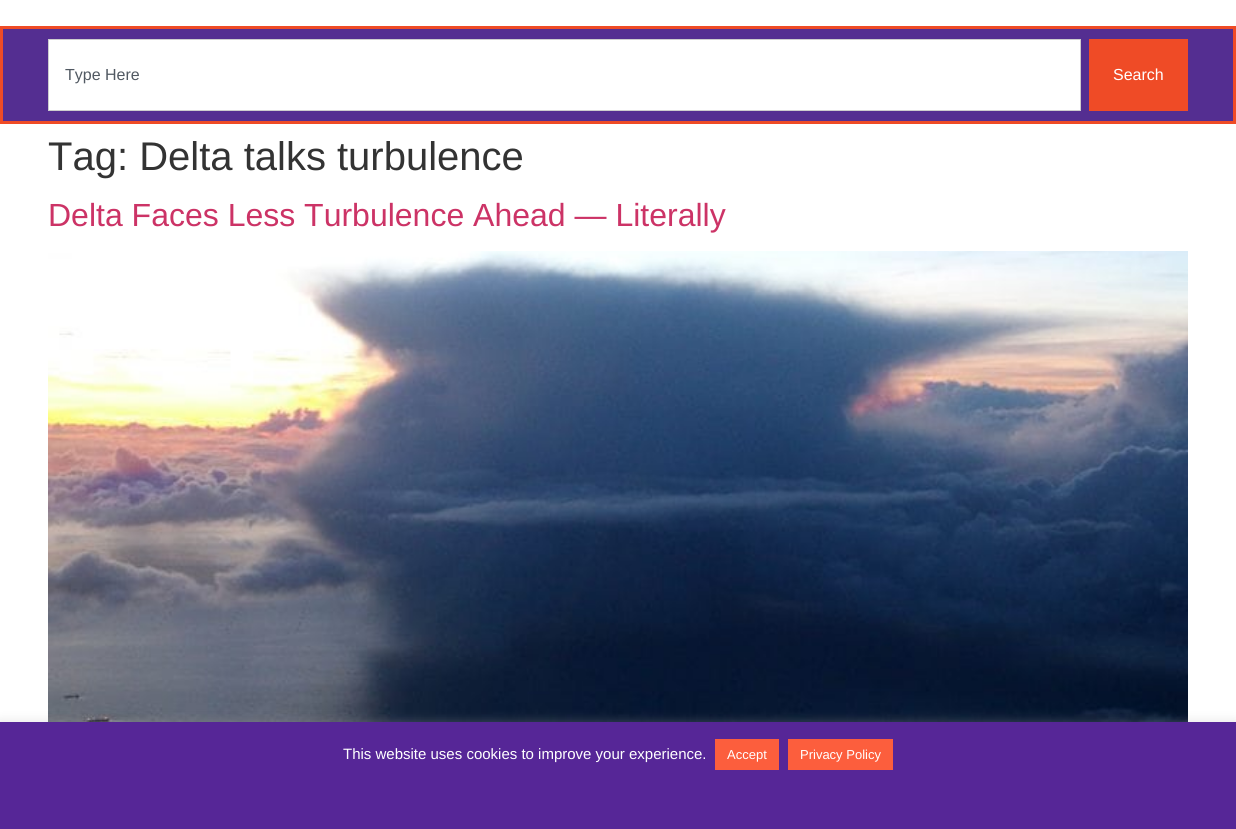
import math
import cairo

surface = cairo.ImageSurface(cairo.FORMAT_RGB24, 1236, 829)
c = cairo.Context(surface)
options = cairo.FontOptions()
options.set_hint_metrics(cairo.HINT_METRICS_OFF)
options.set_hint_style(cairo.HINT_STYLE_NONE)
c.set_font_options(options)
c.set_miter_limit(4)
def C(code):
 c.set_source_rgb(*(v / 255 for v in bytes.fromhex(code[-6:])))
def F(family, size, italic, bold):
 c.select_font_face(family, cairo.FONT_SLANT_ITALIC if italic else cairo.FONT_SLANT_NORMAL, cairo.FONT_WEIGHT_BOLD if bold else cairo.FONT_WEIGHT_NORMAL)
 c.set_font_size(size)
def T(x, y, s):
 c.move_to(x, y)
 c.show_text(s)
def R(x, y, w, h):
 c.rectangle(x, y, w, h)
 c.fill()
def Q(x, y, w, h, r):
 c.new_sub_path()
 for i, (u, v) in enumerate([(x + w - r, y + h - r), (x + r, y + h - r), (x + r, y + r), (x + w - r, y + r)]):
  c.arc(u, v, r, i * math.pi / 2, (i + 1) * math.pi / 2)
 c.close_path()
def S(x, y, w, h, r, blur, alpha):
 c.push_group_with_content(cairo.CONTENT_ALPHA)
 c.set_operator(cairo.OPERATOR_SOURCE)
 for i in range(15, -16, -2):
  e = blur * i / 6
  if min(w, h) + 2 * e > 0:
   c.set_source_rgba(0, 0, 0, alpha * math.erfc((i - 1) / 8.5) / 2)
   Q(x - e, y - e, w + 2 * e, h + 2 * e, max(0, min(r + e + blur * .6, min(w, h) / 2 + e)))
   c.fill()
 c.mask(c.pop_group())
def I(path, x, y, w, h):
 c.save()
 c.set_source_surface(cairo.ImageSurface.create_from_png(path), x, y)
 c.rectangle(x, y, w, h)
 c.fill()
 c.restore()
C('ffffff')
c.paint()
C('542e91')
c.rectangle(1.5,27.5,1233,95)
c.fill_preserve()
C('ef4b26')
c.set_line_width(3)
c.stroke()
C('ffffff')
c.rectangle(48.5,39.5,1032,71)
c.fill_preserve()
C('cdcdcd')
c.set_line_width(1)
c.stroke()
F('Liberation Sans',16,0,0)
C('515962')
T(65,80,'Type Here')
C('ef4b26')
R(1089,39,99,72)
C('ffffff')
T(1113,80,'Search')
F('Liberation Sans',40,0,0)
C('333333')
T(48,170,'Tag: Delta talks turbulence')
F('Liberation Sans',32,0,0)
C('cc3366')
T(48,226,'Delta Faces Less Turbulence Ahead — Literally')
I('1.png',48,251,1140,471)
C('acabab')
S(0,721,1236,107,0,5,.3)
C('562697')
R(0,722,1236,107)
F('Liberation Sans',15,0,0)
C('ffffff')
T(343,759,'This website uses cookies to improve your experience.')
C('fc5e3d')
R(715,739,64,31)
F('Liberation Sans',13,0,0)
C('ffffff')
T(727,759,'Accept')
C('fc5e3d')
R(788,739,105,31)
C('ffffff')
T(800,759,'Privacy Policy')
surface.write_to_png('o.png')
